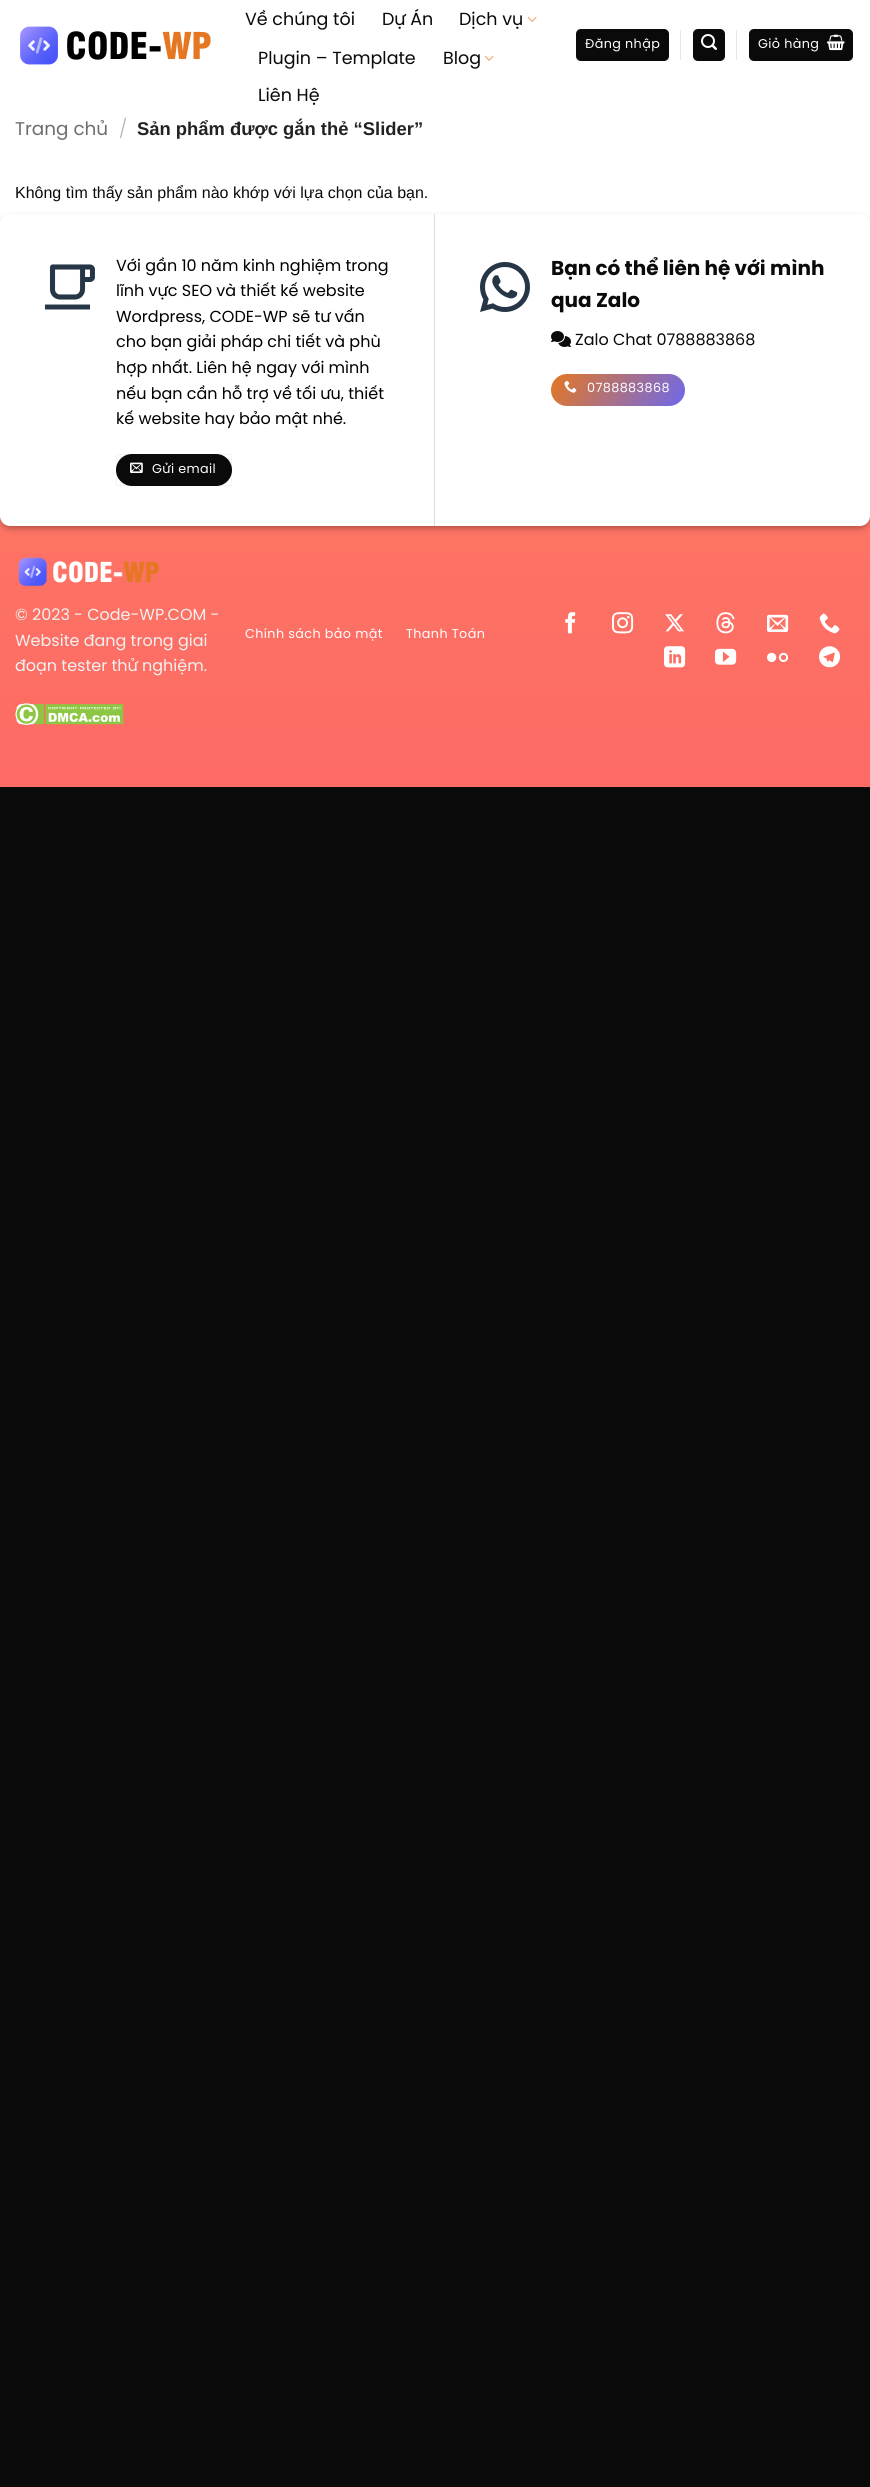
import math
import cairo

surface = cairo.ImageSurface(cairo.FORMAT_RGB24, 870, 2487)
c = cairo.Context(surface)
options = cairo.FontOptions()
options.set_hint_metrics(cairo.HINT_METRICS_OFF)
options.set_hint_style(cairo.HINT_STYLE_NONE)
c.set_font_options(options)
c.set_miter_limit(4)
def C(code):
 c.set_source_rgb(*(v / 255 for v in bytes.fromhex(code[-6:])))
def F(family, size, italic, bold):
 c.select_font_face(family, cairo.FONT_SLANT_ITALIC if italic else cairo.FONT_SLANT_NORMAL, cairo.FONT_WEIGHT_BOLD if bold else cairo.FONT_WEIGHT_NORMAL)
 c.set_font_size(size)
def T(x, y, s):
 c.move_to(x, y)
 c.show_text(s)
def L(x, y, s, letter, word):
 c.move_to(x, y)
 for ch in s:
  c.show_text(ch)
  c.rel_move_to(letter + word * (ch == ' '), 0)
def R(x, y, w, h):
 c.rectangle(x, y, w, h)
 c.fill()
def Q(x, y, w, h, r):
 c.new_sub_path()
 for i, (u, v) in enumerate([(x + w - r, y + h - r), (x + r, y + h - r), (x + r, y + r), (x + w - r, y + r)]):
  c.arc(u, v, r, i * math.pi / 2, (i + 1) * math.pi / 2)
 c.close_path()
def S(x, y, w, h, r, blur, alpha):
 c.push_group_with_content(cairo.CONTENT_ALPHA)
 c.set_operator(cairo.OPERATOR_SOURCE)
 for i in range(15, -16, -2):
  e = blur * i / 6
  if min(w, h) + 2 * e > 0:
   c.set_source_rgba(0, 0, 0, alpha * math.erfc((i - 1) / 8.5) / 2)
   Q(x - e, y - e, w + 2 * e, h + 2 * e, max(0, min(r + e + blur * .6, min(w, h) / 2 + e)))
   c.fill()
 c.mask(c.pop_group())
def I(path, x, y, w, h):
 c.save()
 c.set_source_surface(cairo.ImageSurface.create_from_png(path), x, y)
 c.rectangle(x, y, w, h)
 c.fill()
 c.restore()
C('0a0a0a')
c.paint()
C('ffffff')
R(0,0,870,224)
I('1.png',20,26,191,39)
F('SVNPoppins',17.5,0,0)
C('0a0a0a')
T(245,25,'Về chúng tôi')
T(382,25,'Dự Án')
T(459,25,'Dịch vụ')
I('2.png',527,16,10,6)
T(258,64,'Plugin – Template')
T(443,64,'Blog')
I('2.png',484,55,10,6)
T(258,101,'Liên Hệ')
Q(576,29,93,32,5)
c.fill()
c.rectangle(576.5,29.5,92,31)
c.set_source_rgba(0,0,0,0.05)
c.set_line_width(1)
c.stroke()
F('SVNPoppins',12.75,0,0)
C('ffffff')
L(585,48,'Đăng nhập',.4,0)
C('e6e6e6')
R(680,30,1,30)
C('0a0a0a')
Q(693,29,32,32,5)
c.fill()
c.rectangle(693.5,29.5,31,31)
c.set_source_rgba(0,0,0,0.05)
c.stroke()
I('3.png',701,34,16,16)
C('e6e6e6')
R(736,30,1,30)
C('0a0a0a')
Q(749,29,104,32,5)
c.fill()
c.rectangle(749.5,29.5,103,31)
c.set_source_rgba(0,0,0,0.05)
c.stroke()
C('ffffff')
L(758,48,'Giỏ hàng',.4,0)
I('4.png',827,34,18,17)
F('SVNPoppins',18.4,0,0)
C('6e6e6e')
T(15,135,'Trang chủ')
F('SVNPoppins Light',18.4,0,0)
C('b2b2b2')
T(119,135,'/')
F('Liberation Sans',18.4,0,1)
C('222222')
T(137,135,'Sản phẩm được gắn thẻ “Slider”')
F('Liberation Sans',16,0,0)
C('0a0a0a')
T(15,198,'Không tìm thấy sản phẩm nào khớp với lựa chọn của bạn.')
I('22.png',0,516,870,271)
C('000000')
S(0,217,870,312,10,3,.23)
S(4,221,862,304,6,3,.16)
C('ffffff')
Q(0,214,870,312,10)
c.fill()
I('5.png',44,264,51,46)
F('SVNPoppins',16,0,0)
C('000000')
T(116,271,'Với gần 10 năm kinh nghiệm trong')
T(116,296,'lĩnh vực SEO và thiết kế website')
T(116,322,'Wordpress, CODE-WP sẽ tư vấn')
T(116,347,'cho bạn giải pháp chi tiết và phù')
T(116,373,'hợp nhất. Liên hệ ngay với mình')
T(116,399,'nếu bạn cần hỗ trợ về tối ưu, thiết')
T(116,424,'kế website hay bảo mật nhé.')
C('0a0a0a')
Q(116,454,116,32,16)
c.fill()
c.rectangle(116.5,454.5,115,31)
c.set_source_rgba(0,0,0,0.05)
c.stroke()
I('6.png',130,462,13,11)
F('SVNPoppins',12.75,0,0)
C('ffffff')
L(152,473,'Gửi email',.4,0)
C('dddddd')
R(434,214,1,312)
I('7.png',479,261,51,51)
F('SVNPoppins',20,0,1)
C('0a0a0a')
T(551,275,'Bạn có thể liên hệ với mình')
T(551,307,'qua Zalo')
I('8.png',551,331,20,16)
F('SVNPoppins',16,0,0)
T(575,345,'Zalo Chat 0788883868')
gradient = cairo.LinearGradient(563,355,682,430)
gradient.add_color_stop_rgba(0,0.898,0.467,0.133,1)
gradient.add_color_stop_rgba(1,0.392,0.408,0.984,1)
c.set_source(gradient)
Q(551,374,134,32,16)
c.fill()
I('9.png',564,380,13,13)
F('SVNPoppins',12.75,0,0)
C('ffffff')
L(587,392,'0788883868',.4,0)
I('10.png',18,557,141,30)
F('SVNPoppins',16,0,0)
C('f1f1f1')
T(15,620,'© 2023 - Code-WP.COM -')
T(15,646,'Website đang trong giai')
T(15,671,'đoạn tester thử nghiệm.')
I('11.png',15,703,109,22)
F('SVNPoppins',12.75,0,0)
C('ffffff')
L(245,638,'Chính sách bảo mật',.4,0)
L(406,638,'Thanh Toán',.4,0)
I('12.png',565,612,11,22)
I('13.png',612,612,22,22)
I('14.png',665,614,19,18)
I('15.png',716,612,19,22)
I('16.png',767,614,22,18)
I('17.png',819,613,21,21)
I('18.png',664,646,22,22)
I('19.png',715,648,22,17)
I('20.png',767,652,22,10)
I('21.png',819,646,22,22)
surface.write_to_png('o.png')
